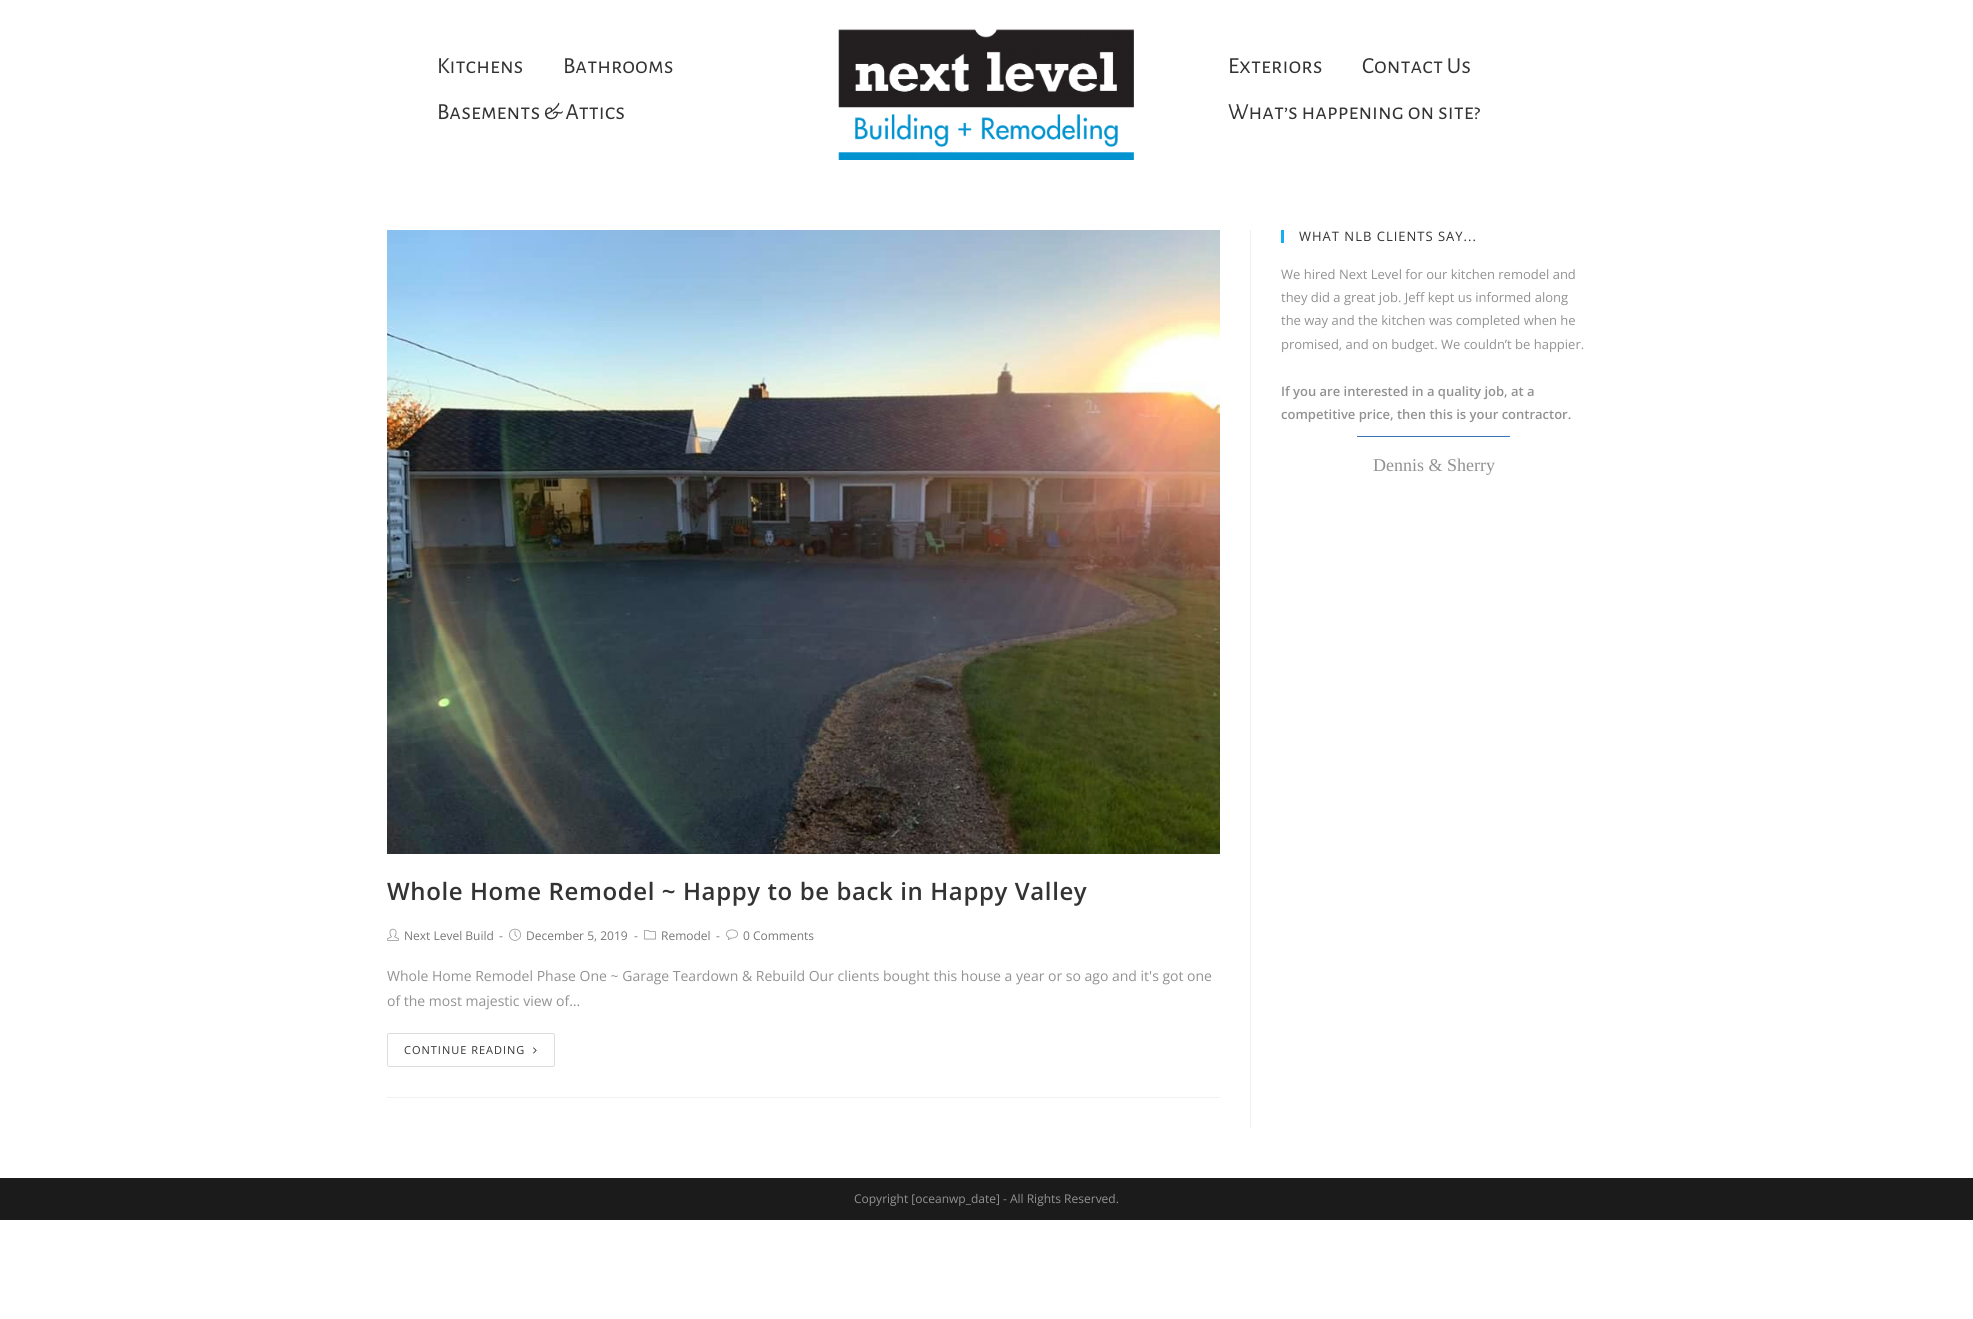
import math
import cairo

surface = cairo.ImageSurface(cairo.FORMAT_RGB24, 1973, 1319)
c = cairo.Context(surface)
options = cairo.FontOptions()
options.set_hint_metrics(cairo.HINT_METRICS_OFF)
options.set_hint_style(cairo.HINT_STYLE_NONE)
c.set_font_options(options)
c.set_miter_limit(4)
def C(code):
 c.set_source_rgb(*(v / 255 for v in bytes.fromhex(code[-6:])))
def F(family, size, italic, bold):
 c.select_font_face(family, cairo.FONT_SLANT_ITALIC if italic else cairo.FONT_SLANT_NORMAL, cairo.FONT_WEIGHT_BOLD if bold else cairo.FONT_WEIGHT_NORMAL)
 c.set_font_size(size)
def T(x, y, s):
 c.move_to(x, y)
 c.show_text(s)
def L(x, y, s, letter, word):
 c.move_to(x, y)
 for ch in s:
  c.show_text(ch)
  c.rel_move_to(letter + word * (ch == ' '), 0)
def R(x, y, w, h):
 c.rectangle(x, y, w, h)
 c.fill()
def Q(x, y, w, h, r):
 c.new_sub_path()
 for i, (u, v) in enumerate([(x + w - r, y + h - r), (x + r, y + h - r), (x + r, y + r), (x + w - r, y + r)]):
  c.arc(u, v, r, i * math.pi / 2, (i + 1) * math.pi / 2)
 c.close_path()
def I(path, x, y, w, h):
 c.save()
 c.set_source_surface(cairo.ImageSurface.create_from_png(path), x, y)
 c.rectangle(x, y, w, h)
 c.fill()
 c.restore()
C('ffffff')
c.paint()
F('Alegreya Sans SC',23,0,0)
C('333333')
T(437,73,'Kitchens')
T(563,73,'Bathrooms')
T(437,119,'Basements & Attics')
I('1.png',838,29,296,131)
T(1228,73,'Exteriors')
T(1362,73,'Contact Us')
T(1228,119,'What’s happening on site?')
C('13aff0')
R(1281,230,3,13)
F('Open Sans',13,0,0)
C('333333')
L(1299,241,'WHAT NLB CLIENTS SAY...',1,0)
C('929292')
T(1281,279,'We hired Next Level for our kitchen remodel and')
T(1281,302,'they did a great job. Jeff kept us informed along')
T(1281,325,'the way and the kitchen was completed when he')
T(1281,349,'promised, and on budget. We couldn’t be happier.')
F('Open Sans SemiBold',13,0,0)
T(1281,396,'If you are interested in a quality job, at a')
T(1281,419,'competitive price, then this is your contractor.')
C('3875b6')
R(1357,436,153,1)
F('Liberation Serif',18,0,0)
C('929292')
T(1373,471,'Dennis & Sherry')
C('f1f1f1')
R(1250,230,1,898)
R(387,1097,833,1)
I('2.png',387,230,833,624)
F('Open Sans SemiBold',24,0,0)
C('333333')
L(387,900,'Whole Home Remodel ~ Happy to be back in Happy Valley',.6,0)
I('3.png',387,928,12,13)
F('Open Sans',12,0,0)
C('777777')
T(404,940,'Next Level Build')
T(499,940,'-')
I('4.png',509,928,12,13)
T(526,940,'December 5, 2019')
T(634,940,'-')
I('5.png',644,930,12,10)
T(661,940,'Remodel')
T(716,940,'-')
I('6.png',726,929,12,11)
T(743,940,'0 Comments')
F('Open Sans',14,0,0)
C('929292')
T(387,981,'Whole Home Remodel Phase One ~ Garage Teardown & Rebuild Our clients bought this house a year or so ago and it\'s got one')
T(387,1006,'of the most majestic view of…')
Q(387.5,1033.5,167,33,1.5)
C('dddddd')
c.set_line_width(1)
c.stroke()
F('Open Sans',11,0,0)
C('333333')
L(404,1054,'CONTINUE READING',1,0)
I('7.png',533,1047,4,7)
C('1b1b1b')
R(0,1178,1973,42)
F('Open Sans',12,0,0)
C('929292')
T(854,1203,'Copyright [oceanwp_date] - All Rights Reserved.')
surface.write_to_png('o.png')
